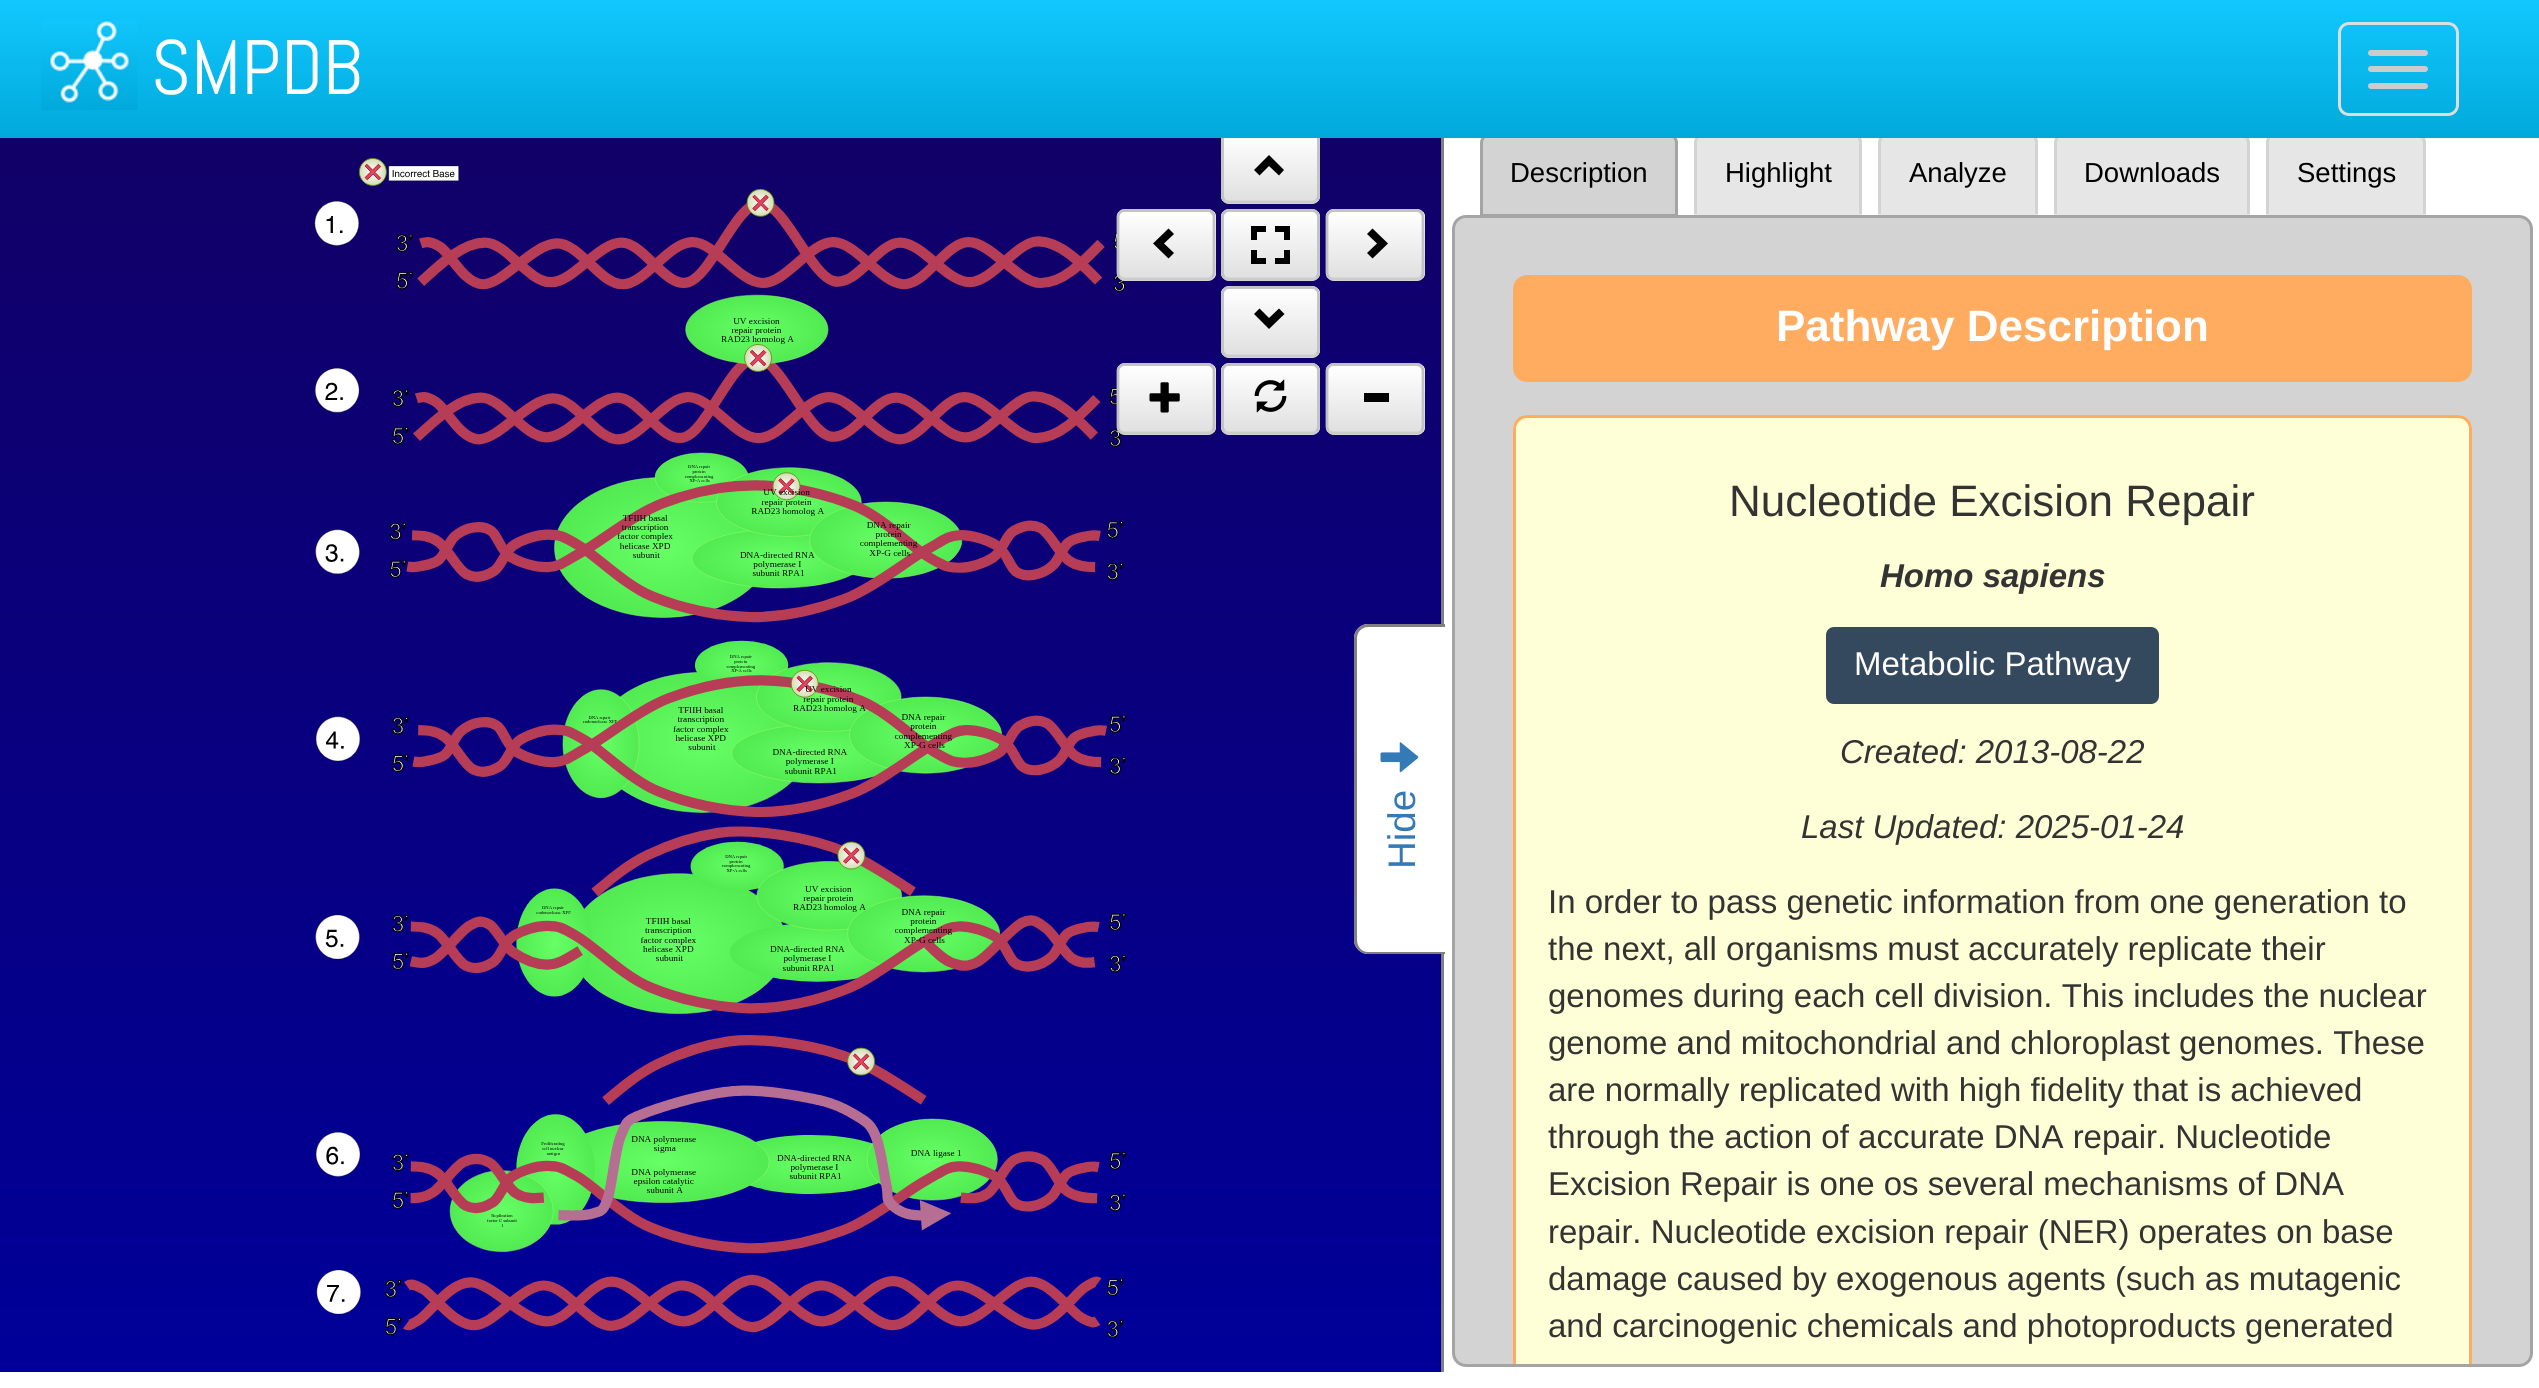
import math
import cairo

surface = cairo.ImageSurface(cairo.FORMAT_RGB24, 2539, 1388)
c = cairo.Context(surface)
options = cairo.FontOptions()
options.set_hint_metrics(cairo.HINT_METRICS_OFF)
options.set_hint_style(cairo.HINT_STYLE_NONE)
c.set_font_options(options)
c.set_miter_limit(4)
def C(code):
 c.set_source_rgb(*(v / 255 for v in bytes.fromhex(code[-6:])))
def F(family, size, italic, bold):
 c.select_font_face(family, cairo.FONT_SLANT_ITALIC if italic else cairo.FONT_SLANT_NORMAL, cairo.FONT_WEIGHT_BOLD if bold else cairo.FONT_WEIGHT_NORMAL)
 c.set_font_size(size)
def T(x, y, s):
 c.move_to(x, y)
 c.show_text(s)
def R(x, y, w, h):
 c.rectangle(x, y, w, h)
 c.fill()
def Q(x, y, w, h, r):
 c.new_sub_path()
 for i, (u, v) in enumerate([(x + w - r, y + h - r), (x + r, y + h - r), (x + r, y + r), (x + w - r, y + r)]):
  c.arc(u, v, r, i * math.pi / 2, (i + 1) * math.pi / 2)
 c.close_path()
def I(path, x, y, w, h):
 c.save()
 c.set_source_surface(cairo.ImageSurface.create_from_png(path), x, y)
 c.rectangle(x, y, w, h)
 c.fill()
 c.restore()
C('ffffff')
c.paint()
gradient = cairo.LinearGradient(1271,115,1271,1372)
gradient.add_color_stop_rgba(0,0.067,0,0.4,1)
gradient.add_color_stop_rgba(1,0,0,0.6,1)
c.set_source(gradient)
R(0,138,1441,1234)
C('d9d9d9')
Q(1221,132,99,72,8)
c.fill()
c.save()
Q(1221,132,99,72,8)
c.clip()
gradient = cairo.LinearGradient(1271,135,1271,201)
gradient.add_color_stop_rgba(0,1,1,1,1)
gradient.add_color_stop_rgba(1,0.878,0.878,0.878,1)
c.set_source(gradient)
R(1221,138,99,63)
c.restore()
c.new_path()
c.move_to(1316.5,200)
c.curve_to(1315.5,201.5,1313.5,202,1312,202)
c.line_to(1229,202)
c.curve_to(1227.5,202,1225.5,201.5,1224.5,200)
C('cccccc')
c.set_line_width(2.8)
c.stroke()
c.new_path()
c.move_to(1224.5,200)
c.curve_to(1223,199,1222.5,197,1222.5,195)
c.line_to(1222.5,140)
c.curve_to(1222.5,138.5,1223,136.5,1224.5,135.5)
c.curve_to(1225.5,134,1227.5,133.5,1229,133.5)
c.line_to(1312,133.5)
c.curve_to(1313.5,133.5,1315.5,134,1316.5,135.5)
c.curve_to(1318,136.5,1318.5,138.5,1318.5,140)
c.line_to(1318.5,195)
c.curve_to(1318.5,197,1318,199,1316.5,200)
C('c2c2c2')
c.stroke()
C('d3d3d3')
Q(1453.5,216.5,1078,1149,12.5)
c.fill_preserve()
C('a4a4a4')
c.set_line_width(3)
c.stroke()
C('d3d3d3')
c.new_path()
c.move_to(1491,133.5)
c.line_to(1667,133.5)
c.curve_to(1672,133.5,1676.5,138,1676.5,143)
c.line_to(1676.5,215.5)
c.line_to(1481.5,215.5)
c.line_to(1481.5,143)
c.curve_to(1481.5,138,1486,133.5,1491,133.5)
c.close_path()
c.fill_preserve()
C('a4a4a4')
c.stroke()
C('e6e6e6')
c.new_path()
c.move_to(1705,132)
c.line_to(1851,132)
c.curve_to(1857,132,1862,137,1862,143)
c.line_to(1862,215)
c.line_to(1694,215)
c.line_to(1694,143)
c.curve_to(1694,137,1699,132,1705,132)
c.close_path()
c.fill()
C('d3d3d3')
c.set_fill_rule(cairo.FILL_RULE_EVEN_ODD)
c.new_path()
c.move_to(1705,132)
c.line_to(1851,132)
c.curve_to(1857,132,1862,137,1862,143)
c.line_to(1862,214)
c.line_to(1694,214)
c.line_to(1694,143)
c.curve_to(1694,137,1699,132,1705,132)
c.close_path()
c.move_to(1705,135)
c.line_to(1851,135)
c.curve_to(1855,135,1859,138,1859,143)
c.line_to(1859,214)
c.line_to(1697,214)
c.line_to(1697,143)
c.curve_to(1697,138,1700,135,1705,135)
c.close_path()
c.fill()
C('e6e6e6')
c.new_path()
c.move_to(1889,132)
c.line_to(2027,132)
c.curve_to(2033,132,2038,137,2038,143)
c.line_to(2038,215)
c.line_to(1878,215)
c.line_to(1878,143)
c.curve_to(1878,137,1883,132,1889,132)
c.close_path()
c.fill()
C('d3d3d3')
c.new_path()
c.move_to(1889,132)
c.line_to(2027,132)
c.curve_to(2033,132,2038,137,2038,143)
c.line_to(2038,214)
c.line_to(1878,214)
c.line_to(1878,143)
c.curve_to(1878,137,1883,132,1889,132)
c.close_path()
c.move_to(1889,135)
c.line_to(2027,135)
c.curve_to(2031,135,2035,138,2035,143)
c.line_to(2035,214)
c.line_to(1881,214)
c.line_to(1881,143)
c.curve_to(1881,138,1885,135,1889,135)
c.close_path()
c.fill()
C('e6e6e6')
c.new_path()
c.move_to(2065,132)
c.line_to(2239,132)
c.curve_to(2245,132,2250,137,2250,143)
c.line_to(2250,215)
c.line_to(2054,215)
c.line_to(2054,143)
c.curve_to(2054,137,2059,132,2065,132)
c.close_path()
c.fill()
C('d3d3d3')
c.new_path()
c.move_to(2065,132)
c.line_to(2238,132)
c.curve_to(2245,132,2250,137,2250,143)
c.line_to(2250,214)
c.line_to(2054,214)
c.line_to(2054,143)
c.curve_to(2054,137,2059,132,2065,132)
c.close_path()
c.move_to(2065,135)
c.line_to(2238,135)
c.curve_to(2243,135,2247,138,2247,143)
c.line_to(2247,214)
c.line_to(2057,214)
c.line_to(2057,143)
c.curve_to(2057,138,2061,135,2065,135)
c.close_path()
c.fill()
C('e6e6e6')
c.new_path()
c.move_to(2277,132)
c.line_to(2415,132)
c.curve_to(2421,132,2426,137,2426,143)
c.line_to(2426,215)
c.line_to(2266,215)
c.line_to(2266,143)
c.curve_to(2266,137,2271,132,2277,132)
c.close_path()
c.fill()
C('d3d3d3')
c.new_path()
c.move_to(2277,132)
c.line_to(2414,132)
c.curve_to(2421,132,2426,137,2426,143)
c.line_to(2426,214)
c.line_to(2266,214)
c.line_to(2266,143)
c.curve_to(2266,137,2271,132,2277,132)
c.close_path()
c.move_to(2277,135)
c.line_to(2414,135)
c.curve_to(2419,135,2423,138,2423,143)
c.line_to(2423,214)
c.line_to(2269,214)
c.line_to(2269,143)
c.curve_to(2269,138,2272,135,2277,135)
c.close_path()
c.fill()
gradient = cairo.LinearGradient(1271,0,1271,138)
gradient.add_color_stop_rgba(0,0.067,0.784,0.996,1)
gradient.add_color_stop_rgba(1,0.004,0.663,0.859,1)
c.set_source(gradient)
R(0,0,2539,138)
I('1.png',41,20,97,90)
F('Abel',77,0,0)
C('ffffff')
T(151,94,'SMPDB')
Q(2339.5,23.5,118,91,9.5)
C('dddddd')
c.stroke()
C('cccccc')
Q(2368,50,60,6,3)
c.fill()
Q(2368,66,60,6,3)
c.fill()
Q(2368,83,60,6,3)
c.fill()
I('2.png',314,158,812,1180)
C('000000')
c.set_fill_rule(cairo.FILL_RULE_WINDING)
c.new_path()
c.move_to(1284,170)
c.line_to(1279,175.5)
c.line_to(1269,166)
c.line_to(1259.5,175.5)
c.line_to(1254,170)
c.line_to(1269,155)
c.close_path()
c.fill()
C('d9d9d9')
Q(1117,209,99,72,8)
c.fill()
c.save()
Q(1117,209,99,72,8)
c.clip()
gradient = cairo.LinearGradient(1166,212,1166,278)
gradient.add_color_stop_rgba(0,1,1,1,1)
gradient.add_color_stop_rgba(1,0.878,0.878,0.878,1)
c.set_source(gradient)
R(1117,212,99,66)
c.restore()
c.new_path()
c.move_to(1212,277)
c.curve_to(1211,278.5,1209,279,1207,279)
c.line_to(1125,279)
c.curve_to(1123,279,1121,278.5,1120,277)
C('cccccc')
c.set_line_width(2.8)
c.stroke()
c.new_path()
c.move_to(1120,277)
c.curve_to(1118.5,276,1118,274,1118,272)
c.line_to(1118,217)
c.curve_to(1118,215.5,1118.5,213.5,1120,212.5)
c.curve_to(1121,211,1123,210.5,1125,210.5)
c.line_to(1207,210.5)
c.curve_to(1209,210.5,1211,211,1212,212.5)
c.curve_to(1213.5,213.5,1214,215.5,1214,217)
c.line_to(1214,272)
c.curve_to(1214,274,1213.5,276,1212,277)
C('c2c2c2')
c.stroke()
C('000000')
c.new_path()
c.move_to(1174,234)
c.line_to(1164,243.5)
c.line_to(1174,253)
c.line_to(1168.5,258.5)
c.line_to(1153,243.5)
c.line_to(1168.5,228.5)
c.close_path()
c.fill()
C('d9d9d9')
Q(1221,209,99,72,8)
c.fill()
c.save()
Q(1221,209,99,72,8)
c.clip()
gradient = cairo.LinearGradient(1271,212,1271,278)
gradient.add_color_stop_rgba(0,1,1,1,1)
gradient.add_color_stop_rgba(1,0.878,0.878,0.878,1)
c.set_source(gradient)
R(1221,212,99,66)
c.restore()
c.new_path()
c.move_to(1316.5,277)
c.curve_to(1315.5,278.5,1313.5,279,1312,279)
c.line_to(1229,279)
c.curve_to(1227.5,279,1225.5,278.5,1224.5,277)
C('cccccc')
c.stroke()
c.new_path()
c.move_to(1224.5,277)
c.curve_to(1223,276,1222.5,274,1222.5,272)
c.line_to(1222.5,217)
c.curve_to(1222.5,215.5,1223,213.5,1224.5,212.5)
c.curve_to(1225.5,211,1227.5,210.5,1229,210.5)
c.line_to(1312,210.5)
c.curve_to(1313.5,210.5,1315.5,211,1316.5,212.5)
c.curve_to(1318,213.5,1318.5,215.5,1318.5,217)
c.line_to(1318.5,272)
c.curve_to(1318.5,274,1318,276,1316.5,277)
C('c2c2c2')
c.stroke()
C('000000')
R(1251,226,6,14)
R(1251,226,15,6)
R(1284,226,6,14)
R(1275,226,15,6)
R(1251,250,6,14)
R(1284,250,6,14)
R(1251,258,15,6)
R(1275,258,15,6)
C('d9d9d9')
Q(1326,209,99,72,8)
c.fill()
c.save()
Q(1326,209,99,72,8)
c.clip()
gradient = cairo.LinearGradient(1375,212,1375,278)
gradient.add_color_stop_rgba(0,1,1,1,1)
gradient.add_color_stop_rgba(1,0.878,0.878,0.878,1)
c.set_source(gradient)
R(1326,212,99,66)
c.restore()
c.new_path()
c.move_to(1421,277)
c.curve_to(1420,278.5,1418,279,1416,279)
c.line_to(1334,279)
c.curve_to(1332,279,1330,278.5,1329,277)
C('cccccc')
c.stroke()
c.new_path()
c.move_to(1329,277)
c.curve_to(1327.5,276,1327,274,1327,272)
c.line_to(1327,217)
c.curve_to(1327,215.5,1327.5,213.5,1329,212.5)
c.curve_to(1330,211,1332,210.5,1334,210.5)
c.line_to(1416,210.5)
c.curve_to(1418,210.5,1420,211,1421,212.5)
c.curve_to(1422.5,213.5,1423,215.5,1423,217)
c.line_to(1423,272)
c.curve_to(1423,274,1422.5,276,1421,277)
C('c2c2c2')
c.stroke()
C('000000')
c.new_path()
c.move_to(1388,243.5)
c.line_to(1372.5,258.5)
c.line_to(1367,253)
c.line_to(1377,243.5)
c.line_to(1367,234)
c.line_to(1372.5,228.5)
c.close_path()
c.fill()
C('d9d9d9')
Q(1221,286,99,72,8)
c.fill()
c.save()
Q(1221,286,99,72,8)
c.clip()
gradient = cairo.LinearGradient(1271,289,1271,355)
gradient.add_color_stop_rgba(0,1,1,1,1)
gradient.add_color_stop_rgba(1,0.878,0.878,0.878,1)
c.set_source(gradient)
R(1221,289,99,66)
c.restore()
c.new_path()
c.move_to(1316.5,354)
c.curve_to(1315.5,355.5,1313.5,356,1312,356)
c.line_to(1229,356)
c.curve_to(1227.5,356,1225.5,355.5,1224.5,354)
C('cccccc')
c.stroke()
c.new_path()
c.move_to(1224.5,354)
c.curve_to(1223,353,1222.5,351,1222.5,349)
c.line_to(1222.5,294)
c.curve_to(1222.5,292.5,1223,290.5,1224.5,289.5)
c.curve_to(1225.5,288,1227.5,287.5,1229,287.5)
c.line_to(1312,287.5)
c.curve_to(1313.5,287.5,1315.5,288,1316.5,289.5)
c.curve_to(1318,290.5,1318.5,292.5,1318.5,294)
c.line_to(1318.5,349)
c.curve_to(1318.5,351,1318,353,1316.5,354)
C('c2c2c2')
c.stroke()
C('000000')
c.new_path()
c.move_to(1284.5,314)
c.line_to(1269,329)
c.line_to(1254,314)
c.line_to(1259.5,308.5)
c.line_to(1269,318)
c.line_to(1279,308.5)
c.close_path()
c.fill()
C('d9d9d9')
Q(1117,363,99,72,8)
c.fill()
c.save()
Q(1117,363,99,72,8)
c.clip()
gradient = cairo.LinearGradient(1166,366,1166,432)
gradient.add_color_stop_rgba(0,1,1,1,1)
gradient.add_color_stop_rgba(1,0.878,0.878,0.878,1)
c.set_source(gradient)
R(1117,366,99,66)
c.restore()
c.new_path()
c.move_to(1212,431)
c.curve_to(1211,432.5,1209,433,1207,433)
c.line_to(1125,433)
c.curve_to(1123,433,1121,432.5,1120,431)
C('cccccc')
c.stroke()
c.new_path()
c.move_to(1120,431)
c.curve_to(1118.5,430,1118,428,1118,426)
c.line_to(1118,371)
c.curve_to(1118,369.5,1118.5,367.5,1120,366.5)
c.curve_to(1121,365,1123,364.5,1125,364.5)
c.line_to(1207,364.5)
c.curve_to(1209,364.5,1211,365,1212,366.5)
c.curve_to(1213.5,367.5,1214,369.5,1214,371)
c.line_to(1214,426)
c.curve_to(1214,428,1213.5,430,1212,431)
C('c2c2c2')
c.stroke()
I('3.png',1149,382,31,31)
C('d9d9d9')
Q(1221,363,99,72,8)
c.fill()
c.save()
Q(1221,363,99,72,8)
c.clip()
gradient = cairo.LinearGradient(1271,366,1271,432)
gradient.add_color_stop_rgba(0,1,1,1,1)
gradient.add_color_stop_rgba(1,0.878,0.878,0.878,1)
c.set_source(gradient)
R(1221,366,99,66)
c.restore()
c.new_path()
c.move_to(1316.5,431)
c.curve_to(1315.5,432.5,1313.5,433,1312,433)
c.line_to(1229,433)
c.curve_to(1227.5,433,1225.5,432.5,1224.5,431)
C('cccccc')
c.stroke()
c.new_path()
c.move_to(1224.5,431)
c.curve_to(1223,430,1222.5,428,1222.5,426)
c.line_to(1222.5,371)
c.curve_to(1222.5,369.5,1223,367.5,1224.5,366.5)
c.curve_to(1225.5,365,1227.5,364.5,1229,364.5)
c.line_to(1312,364.5)
c.curve_to(1313.5,364.5,1315.5,365,1316.5,366.5)
c.curve_to(1318,367.5,1318.5,369.5,1318.5,371)
c.line_to(1318.5,426)
c.curve_to(1318.5,428,1318,430,1316.5,431)
C('c2c2c2')
c.stroke()
I('4.png',1254,379,33,34)
C('d9d9d9')
Q(1326,363,99,72,8)
c.fill()
c.save()
Q(1326,363,99,72,8)
c.clip()
gradient = cairo.LinearGradient(1375,366,1375,432)
gradient.add_color_stop_rgba(0,1,1,1,1)
gradient.add_color_stop_rgba(1,0.878,0.878,0.878,1)
c.set_source(gradient)
R(1326,366,99,66)
c.restore()
c.new_path()
c.move_to(1421,431)
c.curve_to(1420,432.5,1418,433,1416,433)
c.line_to(1334,433)
c.curve_to(1332,433,1330,432.5,1329,431)
C('cccccc')
c.stroke()
c.new_path()
c.move_to(1329,431)
c.curve_to(1327.5,430,1327,428,1327,426)
c.line_to(1327,371)
c.curve_to(1327,369.5,1327.5,367.5,1329,366.5)
c.curve_to(1330,365,1332,364.5,1334,364.5)
c.line_to(1416,364.5)
c.curve_to(1418,364.5,1420,365,1421,366.5)
c.curve_to(1422.5,367.5,1423,369.5,1423,371)
c.line_to(1423,426)
c.curve_to(1423,428,1422.5,430,1421,431)
C('c2c2c2')
c.stroke()
C('000000')
R(1364,393,25,9)
C('808080')
R(1441,138,3,1234)
F('Liberation Sans',27.5,0,0)
C('000000')
T(1510,182,'Description')
T(1725,182,'Highlight')
T(1909,182,'Analyze')
T(2084,182,'Downloads')
T(2297,182,'Settings')
C('ffab60')
Q(1513,275,959,107,14)
c.fill()
F('Liberation Sans',44,0,1)
C('ffffff')
T(1776,341,'Pathway Description')
C('ffffd7')
c.new_path()
c.move_to(1527,415)
c.line_to(2458,415)
c.curve_to(2465.5,415,2472,421.5,2472,429)
c.line_to(2472,1364)
c.line_to(1513,1364)
c.line_to(1513,429)
c.curve_to(1513,421.5,1519.5,415,1527,415)
c.close_path()
c.fill()
C('ffab60')
c.new_path()
c.move_to(1527,415)
c.curve_to(1519,415,1513,421,1513,429)
c.line_to(1513,1364)
c.line_to(1516,1364)
c.line_to(1516,429)
c.curve_to(1516,423,1521,418,1527,418)
c.line_to(2458,418)
c.curve_to(2464,418,2469,423,2469,429)
c.line_to(2469,1364)
c.line_to(2472,1364)
c.line_to(2472,429)
c.curve_to(2472,421,2466,415,2458,415)
c.close_path()
c.fill()
F('Liberation Sans',44,0,0)
C('333333')
T(1729,516,'Nucleotide Excision Repair')
F('Liberation Sans',33,1,1)
T(1880,587,'Homo sapiens')
C('34495e')
Q(1826,627,333,77,8)
c.fill()
F('Liberation Sans',33,0,0)
C('ffffff')
T(1854,675,'Metabolic Pathway')
F('Liberation Sans',33,1,0)
C('333333')
T(1840,763,'Created: 2013-08-22')
T(1801,838,'Last Updated: 2025-01-24')
F('Liberation Sans',33,0,0)
T(1548,913,'In order to pass genetic information from one generation to')
T(1548,960,'the next, all organisms must accurately replicate their')
T(1548,1007,'genomes during each cell division. This includes the nuclear')
T(1548,1054,'genome and mitochondrial and chloroplast genomes. These')
T(1548,1101,'are normally replicated with high fidelity that is achieved')
T(1548,1148,'through the action of accurate DNA repair. Nucleotide')
T(1548,1195,'Excision Repair is one os several mechanisms of DNA')
T(1548,1243,'repair. Nucleotide excision repair (NER) operates on base')
T(1548,1290,'damage caused by exogenous agents (such as mutagenic')
T(1548,1337,'and carcinogenic chemicals and photoproducts generated')
C('ffffff')
c.new_path()
c.move_to(1354,940)
c.line_to(1354,638)
c.curve_to(1354,630,1361,624,1368,624)
c.line_to(1445,624)
c.line_to(1445,954)
c.line_to(1368,954)
c.curve_to(1361,954,1354,948,1354,940)
c.close_path()
c.fill()
C('808080')
c.set_fill_rule(cairo.FILL_RULE_EVEN_ODD)
c.new_path()
c.move_to(1354,940)
c.line_to(1354,638)
c.curve_to(1354,630,1361,624,1368,624)
c.line_to(1445,624)
c.line_to(1445,954)
c.line_to(1368,954)
c.curve_to(1361,954,1354,948,1354,940)
c.close_path()
c.move_to(1357,940)
c.line_to(1357,638)
c.curve_to(1357,632,1362,627,1368,627)
c.line_to(1445,627)
c.line_to(1445,952)
c.line_to(1368,952)
c.curve_to(1362,952,1357,947,1357,940)
c.close_path()
c.fill()
I('5.png',1380,742,39,31)
F('Liberation Sans',38.5,0,0)
C('337ab7')
c.save()
c.translate(1415,869)
c.rotate(-90 * math.pi / 180)
T(0,0,'Hide')
c.restore()
surface.write_to_png('o.png')
